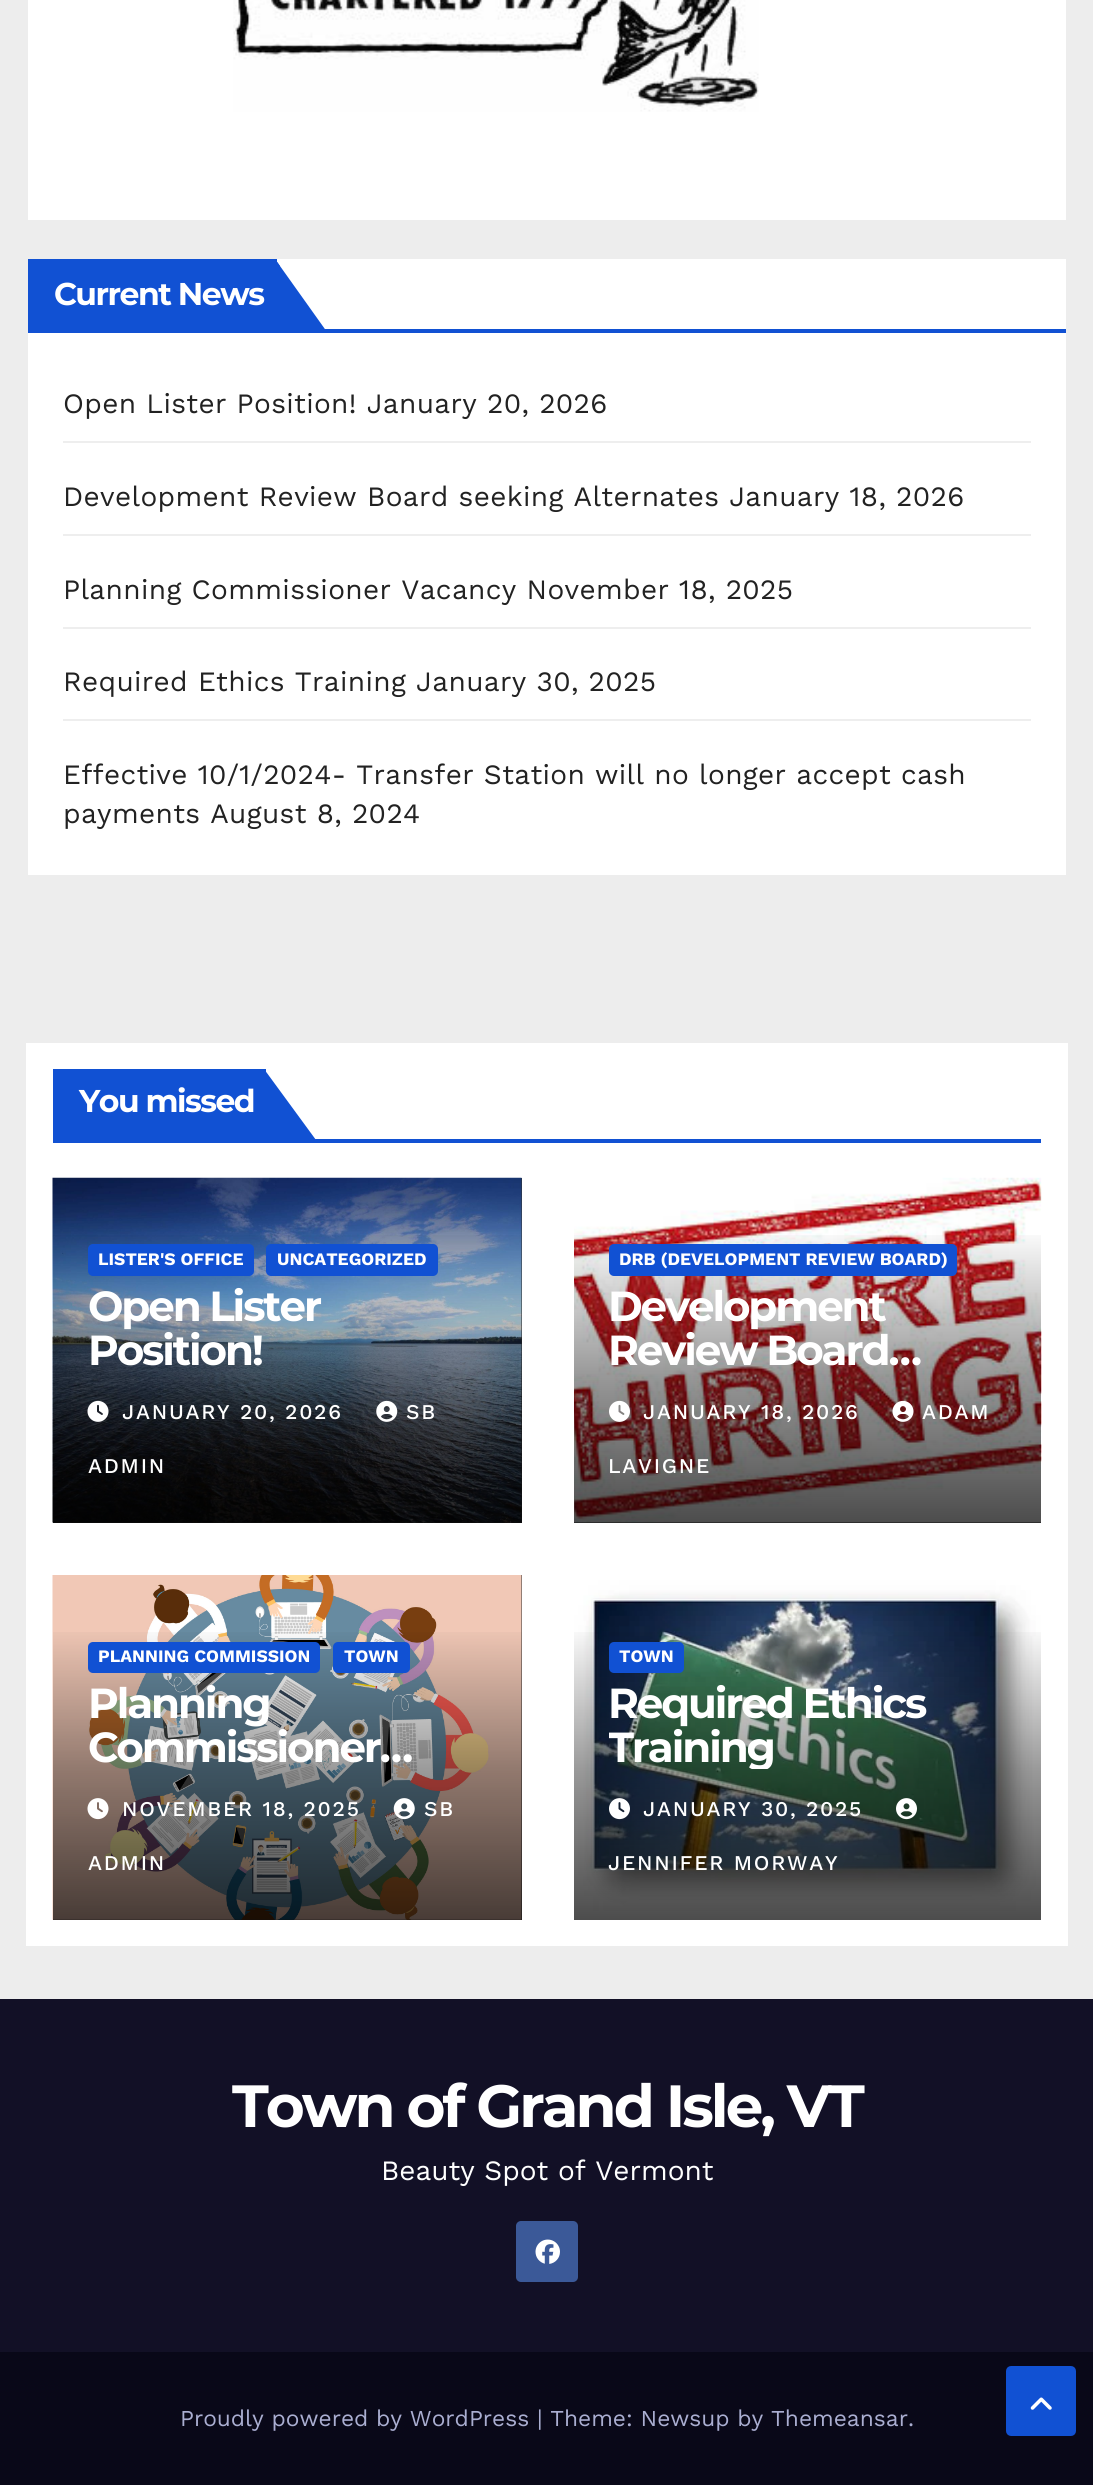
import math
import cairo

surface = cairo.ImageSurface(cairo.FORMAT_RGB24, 1093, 2485)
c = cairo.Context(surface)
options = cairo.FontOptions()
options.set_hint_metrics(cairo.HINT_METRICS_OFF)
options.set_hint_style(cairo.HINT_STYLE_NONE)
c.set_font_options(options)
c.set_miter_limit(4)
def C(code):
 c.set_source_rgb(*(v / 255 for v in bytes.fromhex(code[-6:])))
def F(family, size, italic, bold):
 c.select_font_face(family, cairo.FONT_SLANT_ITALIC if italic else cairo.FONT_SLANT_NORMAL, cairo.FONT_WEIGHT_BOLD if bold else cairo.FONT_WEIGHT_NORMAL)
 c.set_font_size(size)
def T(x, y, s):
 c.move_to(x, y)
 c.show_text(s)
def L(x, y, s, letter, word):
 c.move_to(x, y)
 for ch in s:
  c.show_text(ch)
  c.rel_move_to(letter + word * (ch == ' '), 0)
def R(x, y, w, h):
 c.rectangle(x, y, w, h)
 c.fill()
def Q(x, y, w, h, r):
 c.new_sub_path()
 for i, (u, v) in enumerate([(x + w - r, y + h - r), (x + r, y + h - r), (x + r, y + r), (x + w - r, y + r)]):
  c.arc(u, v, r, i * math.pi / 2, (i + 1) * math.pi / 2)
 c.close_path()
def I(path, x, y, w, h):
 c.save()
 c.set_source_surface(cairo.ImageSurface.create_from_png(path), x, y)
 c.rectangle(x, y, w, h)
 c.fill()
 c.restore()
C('ededed')
c.paint()
C('ffffff')
R(28,0,1038,220)
I('1.png',233,0,526,112)
R(28,259,1038,616)
C('1151d3')
R(28,329,1038,4)
R(28,259,249,70)
F('Montserrat',31.5,0,1)
C('ffffff')
L(54,305,'Current News',-1.5,0)
C('1151d3')
c.new_path()
c.move_to(275,259)
c.line_to(327,332)
c.line_to(327,333)
c.line_to(275,333)
c.close_path()
c.fill()
c.new_path()
c.move_to(275,259)
c.line_to(280,266)
c.line_to(280,327)
c.line_to(275,332)
c.close_path()
c.fill()
C('eeeeee')
R(63,441,968,2)
F('Work Sans',28,0,0)
C('222222')
L(63,413,'Open Lister Position! January 20, 2026',.35,0)
C('eeeeee')
R(63,534,968,2)
C('222222')
L(63,506,'Development Review Board seeking Alternates January 18, 2026',.35,0)
C('eeeeee')
R(63,627,968,2)
C('222222')
L(63,599,'Planning Commissioner Vacancy November 18, 2025',.35,0)
C('eeeeee')
R(63,719,968,2)
C('222222')
L(63,691,'Required Ethics Training January 30, 2025',.35,0)
L(63,784,'Effective 10/1/2024- Transfer Station will no longer accept cash',.35,0)
L(63,823,'payments August 8, 2024',.35,0)
C('ffffff')
R(26,1043,1042,903)
C('1151d3')
R(53,1139,988,4)
R(53,1069,213,70)
F('Montserrat',31.5,0,1)
C('ffffff')
L(79,1112,'You missed',-1.5,0)
C('1151d3')
c.new_path()
c.move_to(264,1069)
c.line_to(264,1140)
c.line_to(316,1140)
c.close_path()
c.fill()
C('333333')
R(53,1178,469,345)
I('2.png',52,1177,470,346)
gradient = cairo.LinearGradient(287,1227,287,1523)
gradient.add_color_stop_rgba(0,0,0,0,0)
gradient.add_color_stop_rgba(.5,0,0,0,.4)
gradient.add_color_stop_rgba(1,0,0,0,.7)
c.set_source(gradient)
R(53,1235,469,288)
C('1151d3')
Q(88,1244,166,32,5)
c.fill()
F('Work Sans',17.5,0,1)
C('ffffff')
T(98,1265,'LISTER\'S OFFICE')
C('1151d3')
Q(266,1244,172,32,5)
c.fill()
C('ffffff')
T(277,1265,'UNCATEGORIZED')
F('Montserrat',42,0,1)
L(88,1321,'Open Lister',-2.1,0)
L(88,1365,'Position!',-2.1,0)
I('3.png',376,1400,22,22)
F('Work Sans Medium',21,0,0)
L(406,1419,'SB',1.75,0)
L(88,1473,'ADMIN',1.75,0)
I('4.png',87,1400,22,22)
L(122,1419,'JANUARY 20, 2026',1.75,0)
C('333333')
R(574,1522,467,1)
I('5.png',574,1177,468,346)
gradient = cairo.LinearGradient(808,1227,808,1523)
gradient.add_color_stop_rgba(0,0,0,0,0)
gradient.add_color_stop_rgba(.5,0,0,0,.4)
gradient.add_color_stop_rgba(1,0,0,0,.7)
c.set_source(gradient)
R(574,1235,467,288)
C('1151d3')
Q(609,1244,348,32,5)
c.fill()
F('Work Sans',17.5,0,1)
C('ffffff')
T(619,1265,'DRB (DEVELOPMENT REVIEW BOARD)')
F('Montserrat',42,0,1)
L(608,1321,'Development',-2.1,0)
L(608,1365,'Review Board…',-2.1,0)
I('6.png',609,1400,21,22)
F('Work Sans Medium',21,0,0)
L(643,1419,'JANUARY 18, 2026',1.75,0)
I('7.png',892,1400,22,22)
L(922,1419,'ADAM',1.75,0)
L(608,1473,'LAVIGNE',1.75,0)
C('333333')
R(53,1575,469,345)
I('8.png',52,1575,470,345)
gradient = cairo.LinearGradient(287,1624,287,1920)
gradient.add_color_stop_rgba(0,0,0,0,0)
gradient.add_color_stop_rgba(.5,0,0,0,.4)
gradient.add_color_stop_rgba(1,0,0,0,.7)
c.set_source(gradient)
R(53,1632,469,288)
C('1151d3')
Q(88,1642,232,31,5)
c.fill()
F('Work Sans',17.5,0,1)
C('ffffff')
T(98,1662,'PLANNING COMMISSION')
C('1151d3')
Q(333,1642,77,31,5)
c.fill()
C('ffffff')
T(344,1662,'TOWN')
F('Montserrat',42,0,1)
L(88,1718,'Planning',-2.1,0)
L(88,1762,'Commissioner…',-2.1,0)
I('9.png',393,1798,22,22)
F('Work Sans Medium',21,0,0)
L(424,1816,'SB',1.75,0)
L(88,1870,'ADMIN',1.75,0)
I('10.png',87,1798,22,22)
L(122,1816,'NOVEMBER 18, 2025',1.75,0)
I('11.png',574,1575,467,345)
gradient = cairo.LinearGradient(808,1624,808,1920)
gradient.add_color_stop_rgba(0,0,0,0,0)
gradient.add_color_stop_rgba(.5,0,0,0,.4)
gradient.add_color_stop_rgba(1,0,0,0,.7)
c.set_source(gradient)
R(574,1632,467,288)
C('1151d3')
Q(609,1642,75,31,5)
c.fill()
F('Work Sans',17.5,0,1)
C('ffffff')
T(619,1662,'TOWN')
F('Montserrat',42,0,1)
L(608,1718,'Required Ethics',-2.1,0)
c.save()
c.rectangle(609,1682,397,87)
c.clip()
L(608,1762,'Training',-2.1,0)
c.restore()
I('12.png',609,1798,21,22)
F('Work Sans Medium',21,0,0)
L(643,1816,'JANUARY 30, 2025',1.75,0)
I('13.png',896,1798,21,22)
L(608,1870,'JENNIFER MORWAY',1.75,0)
C('121026')
R(0,1999,1093,353)
F('Montserrat',59.5,0,1)
C('ffffff')
L(232,2127,'Town of Grand Isle, VT',-3,0)
F('Work Sans',28,0,0)
T(381,2180,'Beauty Spot of Vermont')
C('3b5998')
Q(516,2221,62,61,5)
c.fill()
I('14.png',535,2239,25,25)
C('090818')
R(0,2352,1093,133)
F('Work Sans',22.75,0,0)
C('aaaed1')
T(180,2426,'Proudly powered by WordPress | Theme: Newsup by Themeansar.')
C('1151d3')
Q(1008,2368,66,66,3)
c.fill_preserve()
c.set_line_width(4)
c.stroke()
I('15.png',1030,2397,22,13)
surface.write_to_png('o.png')
